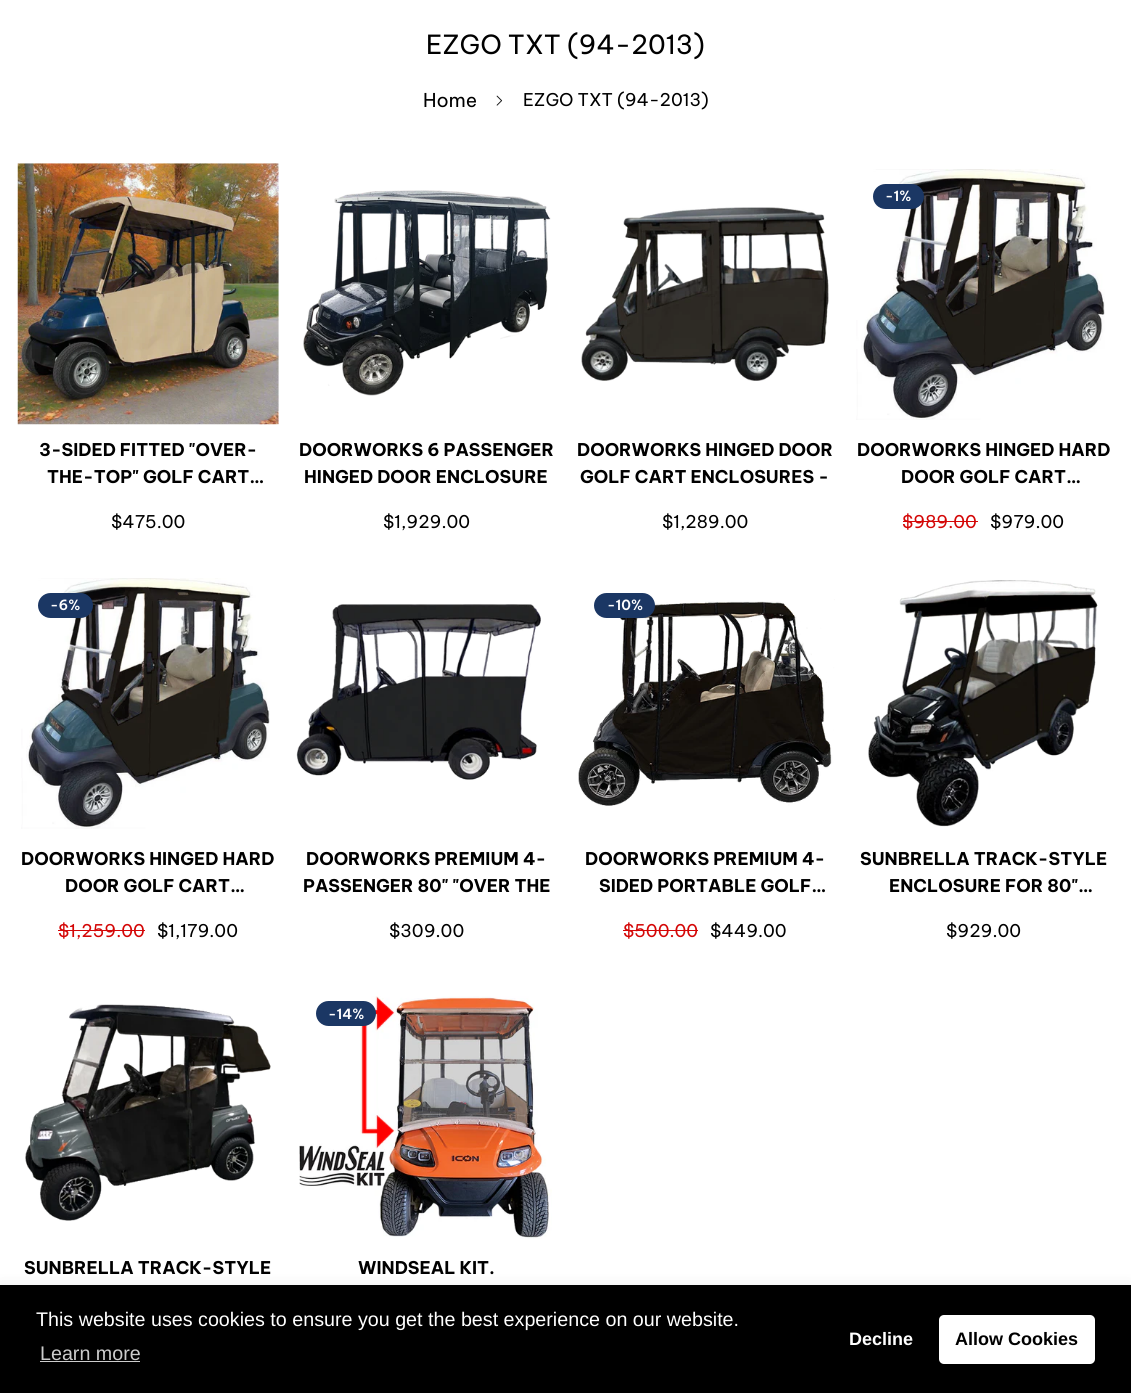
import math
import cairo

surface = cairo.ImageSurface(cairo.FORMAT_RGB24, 1131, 1393)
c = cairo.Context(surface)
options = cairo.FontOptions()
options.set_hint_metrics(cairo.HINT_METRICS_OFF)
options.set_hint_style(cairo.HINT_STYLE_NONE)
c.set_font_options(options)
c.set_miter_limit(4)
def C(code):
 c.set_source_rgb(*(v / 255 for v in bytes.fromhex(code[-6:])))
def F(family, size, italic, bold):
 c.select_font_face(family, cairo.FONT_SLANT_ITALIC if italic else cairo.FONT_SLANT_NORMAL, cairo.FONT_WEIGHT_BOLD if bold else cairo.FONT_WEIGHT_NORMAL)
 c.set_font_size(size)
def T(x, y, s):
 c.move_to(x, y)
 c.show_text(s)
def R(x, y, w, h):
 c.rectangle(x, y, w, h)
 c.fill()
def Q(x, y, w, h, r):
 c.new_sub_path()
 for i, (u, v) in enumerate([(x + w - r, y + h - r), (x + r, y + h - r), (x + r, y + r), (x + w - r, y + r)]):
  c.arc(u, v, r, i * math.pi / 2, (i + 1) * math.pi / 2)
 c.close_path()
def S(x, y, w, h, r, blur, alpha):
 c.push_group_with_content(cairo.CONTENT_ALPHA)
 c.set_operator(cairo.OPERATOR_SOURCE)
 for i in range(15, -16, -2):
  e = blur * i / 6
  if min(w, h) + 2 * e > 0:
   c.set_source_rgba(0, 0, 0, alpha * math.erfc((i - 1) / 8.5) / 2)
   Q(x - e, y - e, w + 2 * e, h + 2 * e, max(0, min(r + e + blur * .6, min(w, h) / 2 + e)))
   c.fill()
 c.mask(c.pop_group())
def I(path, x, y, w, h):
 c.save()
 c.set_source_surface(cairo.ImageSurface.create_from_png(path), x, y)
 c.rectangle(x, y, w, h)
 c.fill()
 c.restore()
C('ffffff')
c.paint()
F('Be Vietnam Pro',26.25,0,0)
C('000000')
T(426,54,'EZGO TXT (94-2013)')
F('Be Vietnam Pro',19,0,0)
T(423,107,'Home')
I('1.png',496,95,7,11)
F('Be Vietnam Pro',17.5,0,0)
T(523,106,'EZGO TXT (94-2013)')
I('2.png',17,163,262,262)
F('Be Vietnam Pro',17.5,0,1)
T(39,456,'3-SIDED FITTED "OVER-')
T(47,483,'THE-TOP" GOLF CART…')
F('Be Vietnam Pro',17.5,0,0)
T(111,528,'$475.00')
I('3.png',303,190,248,206)
F('Be Vietnam Pro',17.5,0,1)
T(299,456,'DOORWORKS 6 PASSENGER')
T(304,483,'HINGED DOOR ENCLOSURE')
F('Be Vietnam Pro',17.5,0,0)
T(383,528,'$1,929.00')
I('4.png',581,207,248,174)
F('Be Vietnam Pro',17.5,0,1)
T(577,456,'DOORWORKS HINGED DOOR')
T(580,483,'GOLF CART ENCLOSURES -')
F('Be Vietnam Pro',17.5,0,0)
T(662,528,'$1,289.00')
I('5.png',856,169,249,251)
C('1b3764')
Q(873,184,51,25,12.5)
c.fill()
F('Be Vietnam Pro SemiBold',14,0,0)
C('ffffff')
T(885,201,'-1%')
F('Be Vietnam Pro',17.5,0,1)
C('000000')
T(857,456,'DOORWORKS HINGED HARD')
T(901,483,'DOOR GOLF CART…')
F('Be Vietnam Pro',17.5,0,0)
C('d40707')
T(902,528,'$989.00')
R(903,521,75,1)
C('000000')
T(990,528,'$979.00')
I('6.png',21,578,249,251)
C('1b3764')
Q(38,593,55,25,12.5)
c.fill()
F('Be Vietnam Pro SemiBold',14,0,0)
C('ffffff')
T(50,610,'-6%')
F('Be Vietnam Pro',17.5,0,1)
C('000000')
T(21,865,'DOORWORKS HINGED HARD')
T(65,892,'DOOR GOLF CART…')
F('Be Vietnam Pro',17.5,0,0)
C('d40707')
T(58,937,'$1,259.00')
R(58,930,87,1)
C('000000')
T(157,937,'$1,179.00')
I('7.png',296,604,245,176)
F('Be Vietnam Pro',17.5,0,1)
T(306,865,'DOORWORKS PREMIUM 4-')
T(303,892,'PASSENGER 80" "OVER THE')
F('Be Vietnam Pro',17.5,0,0)
T(389,937,'$309.00')
I('8.png',578,599,257,207)
C('1b3764')
Q(594,593,61,25,12.5)
c.fill()
F('Be Vietnam Pro SemiBold',14,0,0)
C('ffffff')
T(607,610,'-10%')
F('Be Vietnam Pro',17.5,0,1)
C('000000')
T(585,865,'DOORWORKS PREMIUM 4-')
T(599,892,'SIDED PORTABLE GOLF…')
F('Be Vietnam Pro',17.5,0,0)
C('d40707')
T(623,937,'$500.00')
R(623,930,75,1)
C('000000')
T(710,937,'$449.00')
I('9.png',868,580,230,247)
F('Be Vietnam Pro',17.5,0,1)
T(860,865,'SUNBRELLA TRACK-STYLE')
T(889,892,'ENCLOSURE FOR 80"…')
F('Be Vietnam Pro',17.5,0,0)
T(946,937,'$929.00')
I('10.png',25,1004,246,217)
F('Be Vietnam Pro',17.5,0,1)
T(24,1274,'SUNBRELLA TRACK-STYLE')
I('11.png',299,996,253,243)
C('1b3764')
Q(316,1001,60,25,12.5)
c.fill()
F('Be Vietnam Pro SemiBold',14,0,0)
C('ffffff')
T(328,1019,'-14%')
F('Be Vietnam Pro',17.5,0,1)
C('000000')
T(358,1274,'WINDSEAL KIT.')
C('000000')
S(0,1291,1131,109,0,9.5,.15)
C('000000')
R(0,1285,1131,108)
F('Liberation Sans',19.7,0,0)
C('ffffff')
T(36,1326,'This website uses cookies to ensure you get the best experience on our website.')
C('cccccc')
T(40,1360,'Learn more')
R(40,1361,100,1)
F('Liberation Sans',18,0,1)
C('ffffff')
T(849,1345,'Decline')
Q(939,1315,156,49,5)
c.fill()
C('000000')
T(955,1345,'Allow Cookies')
surface.write_to_png('o.png')
